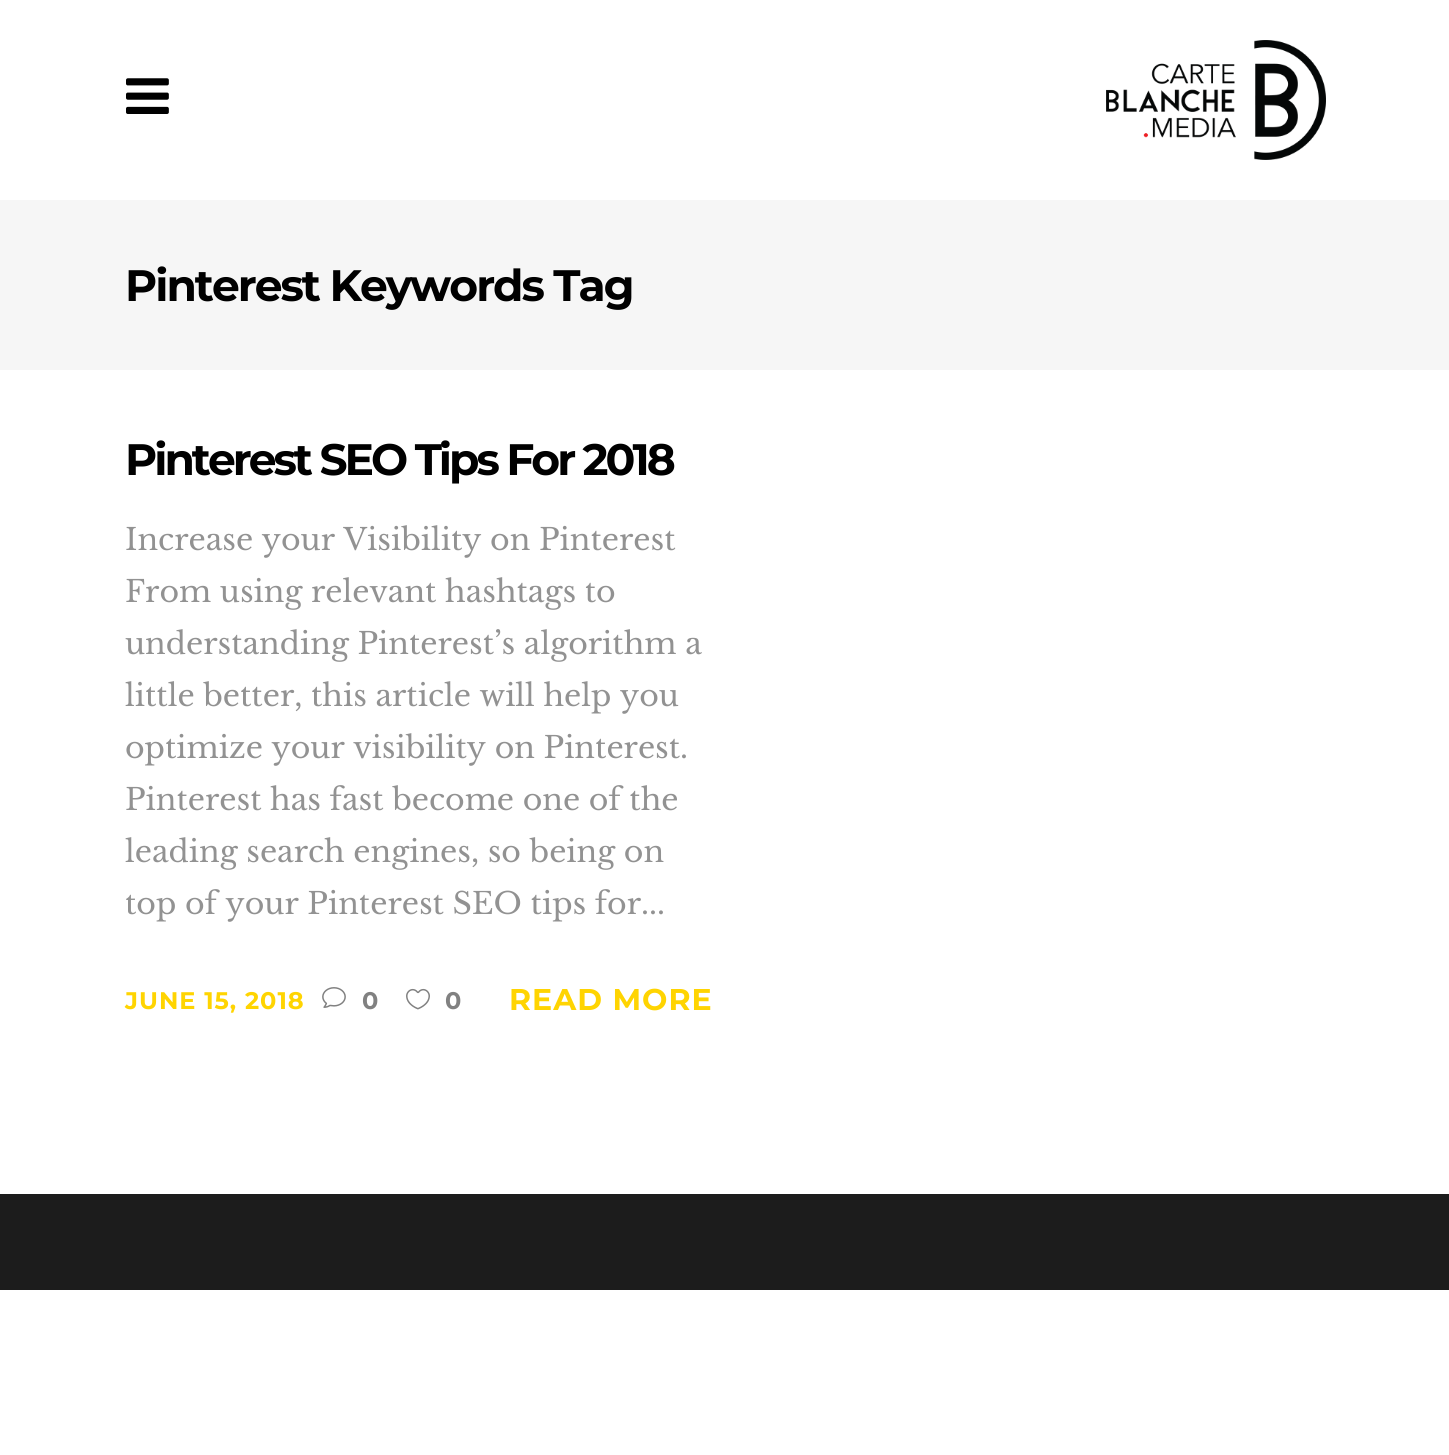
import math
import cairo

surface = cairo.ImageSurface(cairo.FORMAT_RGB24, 1449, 1455)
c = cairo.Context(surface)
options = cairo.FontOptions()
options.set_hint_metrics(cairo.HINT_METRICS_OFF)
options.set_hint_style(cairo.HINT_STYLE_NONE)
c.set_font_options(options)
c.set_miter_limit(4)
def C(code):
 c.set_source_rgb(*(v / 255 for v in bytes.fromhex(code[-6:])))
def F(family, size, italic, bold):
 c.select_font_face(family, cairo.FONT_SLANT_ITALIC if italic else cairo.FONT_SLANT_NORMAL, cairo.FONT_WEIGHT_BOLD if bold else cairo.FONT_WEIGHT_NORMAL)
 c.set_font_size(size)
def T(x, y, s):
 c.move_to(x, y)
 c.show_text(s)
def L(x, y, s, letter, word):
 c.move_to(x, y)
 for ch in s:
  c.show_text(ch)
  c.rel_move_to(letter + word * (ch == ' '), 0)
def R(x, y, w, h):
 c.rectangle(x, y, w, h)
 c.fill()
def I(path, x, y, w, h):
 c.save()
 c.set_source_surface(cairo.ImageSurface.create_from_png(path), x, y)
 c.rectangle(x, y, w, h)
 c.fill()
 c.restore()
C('ffffff')
c.paint()
I('1.png',126,78,43,36)
I('2.png',1106,40,220,120)
C('f6f6f6')
R(0,200,1449,170)
F('Montserrat',44,0,1)
C('000000')
L(125,301,'Pinterest Keywords Tag',-2,0)
L(125,475,'Pinterest SEO Tips For 2018',-3,0)
F('Libre Baskerville',30,0,0)
C('929292')
T(125,550,'Increase your Visibility on Pinterest')
T(125,602,'From using relevant hashtags to')
T(125,654,'understanding Pinterest’s algorithm a')
T(125,706,'little better, this article will help you')
T(125,758,'optimize your visibility on Pinterest.')
T(125,810,'Pinterest has fast become one of the')
T(125,862,'leading search engines, so being on')
T(125,914,'top of your Pinterest SEO tips for...')
F('Montserrat',24,0,1)
C('ffd401')
L(125,1009,'JUNE 15, 2018',1,0)
I('3.png',322,987,24,21)
C('818181')
L(362,1009,'0',1,0)
I('4.png',406,988,24,22)
L(445,1009,'0',1,0)
F('Montserrat',30,0,1)
C('ffd401')
L(509,1010,'READ MORE',1,0)
C('1c1c1c')
R(0,1194,1449,96)
surface.write_to_png('o.png')
